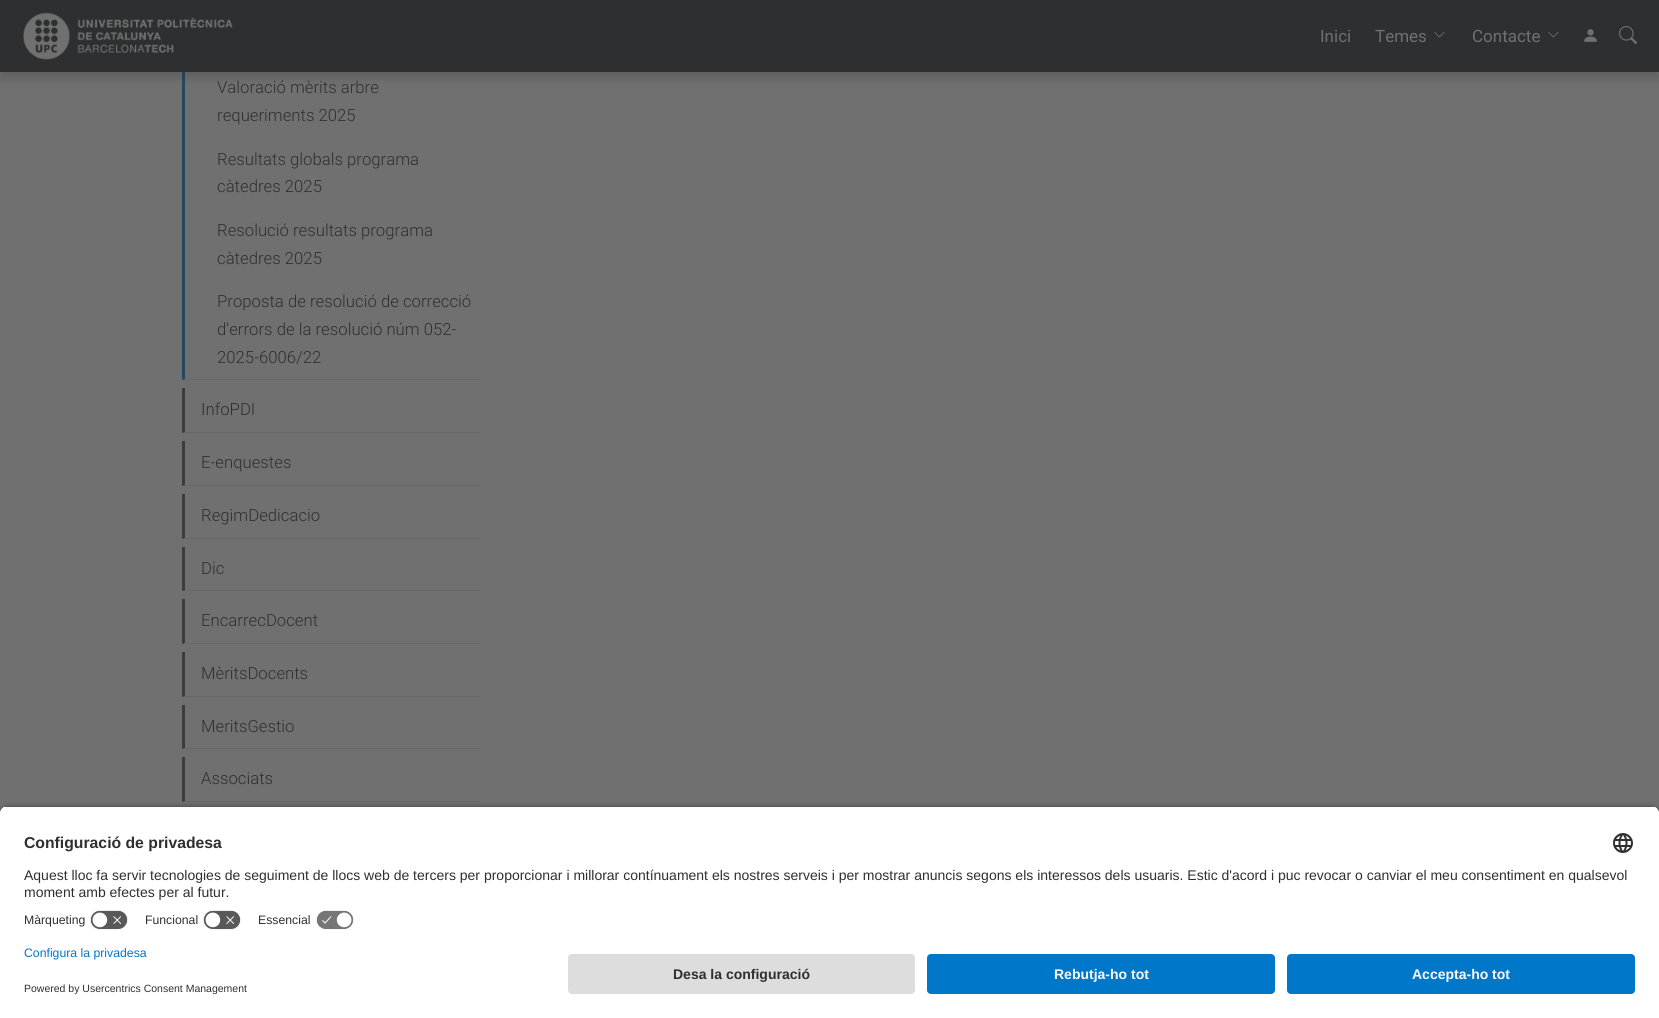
import math
import cairo

surface = cairo.ImageSurface(cairo.FORMAT_RGB24, 1659, 1018)
c = cairo.Context(surface)
options = cairo.FontOptions()
options.set_hint_metrics(cairo.HINT_METRICS_OFF)
options.set_hint_style(cairo.HINT_STYLE_NONE)
c.set_font_options(options)
c.set_miter_limit(4)
def C(code):
 c.set_source_rgb(*(v / 255 for v in bytes.fromhex(code[-6:])))
def F(family, size, italic, bold):
 c.select_font_face(family, cairo.FONT_SLANT_ITALIC if italic else cairo.FONT_SLANT_NORMAL, cairo.FONT_WEIGHT_BOLD if bold else cairo.FONT_WEIGHT_NORMAL)
 c.set_font_size(size)
def T(x, y, s):
 c.move_to(x, y)
 c.show_text(s)
def R(x, y, w, h):
 c.rectangle(x, y, w, h)
 c.fill()
def Q(x, y, w, h, r):
 c.new_sub_path()
 for i, (u, v) in enumerate([(x + w - r, y + h - r), (x + r, y + h - r), (x + r, y + r), (x + w - r, y + r)]):
  c.arc(u, v, r, i * math.pi / 2, (i + 1) * math.pi / 2)
 c.close_path()
def S(x, y, w, h, r, blur, alpha):
 c.push_group_with_content(cairo.CONTENT_ALPHA)
 c.set_operator(cairo.OPERATOR_SOURCE)
 for i in range(15, -16, -2):
  e = blur * i / 6
  if min(w, h) + 2 * e > 0:
   c.set_source_rgba(0, 0, 0, alpha * math.erfc((i - 1) / 8.5) / 2)
   Q(x - e, y - e, w + 2 * e, h + 2 * e, max(0, min(r + e + blur * .6, min(w, h) / 2 + e)))
   c.fill()
 c.mask(c.pop_group())
def I(path, x, y, w, h):
 c.save()
 c.set_source_surface(cairo.ImageSurface.create_from_png(path), x, y)
 c.rectangle(x, y, w, h)
 c.fill()
 c.restore()
C('707070')
c.paint()
C('666869')
c.new_path()
c.move_to(480,380)
c.line_to(182,380)
c.line_to(185,379)
c.line_to(480,379)
c.close_path()
c.fill()
C('24495e')
c.new_path()
c.move_to(182,380)
c.line_to(182,-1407)
c.line_to(185,-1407)
c.line_to(185,379)
c.close_path()
c.fill()
C('242424')
S(0,7,1659,72,0,4,.2)
C('2e2f30')
R(0,0,1659,72)
I('1.png',23,12,210,48)
F('Roboto',17,0,0)
C('707070')
T(1320,42,'Inici')
T(1375,42,'Temes')
I('2.png',1434,31,11,7)
T(1472,42,'Contacte')
I('2.png',1548,31,11,7)
I('3.png',1584,29,13,13)
I('4.png',1619,26,18,18)
F('Roboto Light',16.75,0,0)
C('2e2f30')
T(217,93,'Valoració mèrits arbre')
T(217,121,'requeriments 2025')
T(217,165,'Resultats globals programa')
T(217,192,'càtedres 2025')
T(217,236,'Resolució resultats programa')
T(217,264,'càtedres 2025')
T(217,307,'Proposta de resolució de correcció')
T(217,335,'d\'errors de la resolució núm 052-')
T(217,363,'2025-6006/22')
C('666869')
c.new_path()
c.move_to(480,433)
c.line_to(182,433)
c.line_to(185,432)
c.line_to(480,432)
c.close_path()
c.fill()
C('3a3c3e')
c.new_path()
c.move_to(182,433)
c.line_to(182,388)
c.line_to(185,388)
c.line_to(185,432)
c.close_path()
c.fill()
C('2e2f30')
T(201,415,'InfoPDI')
C('666869')
c.new_path()
c.move_to(480,486)
c.line_to(182,486)
c.line_to(185,485)
c.line_to(480,485)
c.close_path()
c.fill()
C('3a3c3e')
c.new_path()
c.move_to(182,486)
c.line_to(182,441)
c.line_to(185,441)
c.line_to(185,485)
c.close_path()
c.fill()
C('2e2f30')
T(201,468,'E-enquestes')
C('666869')
c.new_path()
c.move_to(480,539)
c.line_to(182,539)
c.line_to(185,538)
c.line_to(480,538)
c.close_path()
c.fill()
C('3a3c3e')
c.new_path()
c.move_to(182,539)
c.line_to(182,494)
c.line_to(185,494)
c.line_to(185,538)
c.close_path()
c.fill()
C('2e2f30')
T(201,521,'RegimDedicacio')
C('666869')
c.new_path()
c.move_to(480,591)
c.line_to(182,591)
c.line_to(185,590)
c.line_to(480,590)
c.close_path()
c.fill()
C('3a3c3e')
c.new_path()
c.move_to(182,591)
c.line_to(182,547)
c.line_to(185,547)
c.line_to(185,590)
c.close_path()
c.fill()
C('2e2f30')
T(201,574,'Dic')
C('666869')
c.new_path()
c.move_to(480,644)
c.line_to(182,644)
c.line_to(185,643)
c.line_to(480,643)
c.close_path()
c.fill()
C('3a3c3e')
c.new_path()
c.move_to(182,644)
c.line_to(182,599)
c.line_to(185,599)
c.line_to(185,643)
c.close_path()
c.fill()
C('2e2f30')
T(201,626,'EncarrecDocent')
C('666869')
c.new_path()
c.move_to(480,697)
c.line_to(182,697)
c.line_to(185,696)
c.line_to(480,696)
c.close_path()
c.fill()
C('3a3c3e')
c.new_path()
c.move_to(182,697)
c.line_to(182,652)
c.line_to(185,652)
c.line_to(185,696)
c.close_path()
c.fill()
C('2e2f30')
T(201,679,'MèritsDocents')
C('666869')
c.new_path()
c.move_to(480,749)
c.line_to(182,749)
c.line_to(185,748)
c.line_to(480,748)
c.close_path()
c.fill()
C('3a3c3e')
c.new_path()
c.move_to(182,749)
c.line_to(182,705)
c.line_to(185,705)
c.line_to(185,748)
c.close_path()
c.fill()
C('2e2f30')
T(201,732,'MeritsGestio')
C('666869')
c.new_path()
c.move_to(480,802)
c.line_to(182,802)
c.line_to(185,801)
c.line_to(480,801)
c.close_path()
c.fill()
C('3a3c3e')
c.new_path()
c.move_to(182,802)
c.line_to(182,757)
c.line_to(185,757)
c.line_to(185,801)
c.close_path()
c.fill()
C('2e2f30')
T(201,784,'Associats')
C('000000')
S(0,809,1659,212,8,3.5,.8)
c.save()
c.new_path()
c.move_to(8,806)
c.line_to(1651,806)
c.curve_to(1655.5,806,1659,809.5,1659,814)
c.line_to(1659,946)
c.line_to(0,946)
c.line_to(0,814)
c.curve_to(0,809.5,3.5,806,8,806)
c.close_path()
c.clip()
C('ffffff')
R(0,807,1659,139)
R(0,807,1659,99)
c.restore()
F('Liberation Sans',15.75,0,1)
C('2e2f30')
T(24,848,'Configuració de privadesa')
I('5.png',1613,833,20,20)
F('Liberation Sans',14,0,0)
T(24,880,'Aquest lloc fa servir tecnologies de seguiment de llocs web de tercers per proporcionar i millorar contínuament els nostres serveis i per mostrar anuncis segons els interessos dels usuaris. Estic d\'acord i puc revocar o canviar el meu consentiment en qualsevol')
T(24,897,'moment amb efectes per al futur.')
F('Liberation Sans',12.25,0,0)
T(24,924,'Màrqueting')
I('6.png',90,910,38,20)
T(145,924,'Funcional')
I('6.png',203,910,38,20)
T(258,924,'Essencial')
I('7.png',316,910,38,20)
C('ffffff')
R(0,946,1659,72)
C('0077c8')
T(24,957,'Configura la privadesa')
F('Liberation Sans',10.5,0,0)
C('2e2f30')
T(24,992,'Powered by Usercentrics Consent Management')
C('dddddd')
Q(568,954,347,40,4)
c.fill()
F('Liberation Sans',14,0,1)
C('2e2f30')
T(673,979,'Desa la configuració')
C('0077c8')
Q(927,954,348,40,4)
c.fill()
C('fafafa')
T(1054,979,'Rebutja-ho tot')
C('0077c8')
Q(1287,954,348,40,4)
c.fill()
C('fafafa')
T(1412,979,'Accepta-ho tot')
surface.write_to_png('o.png')
